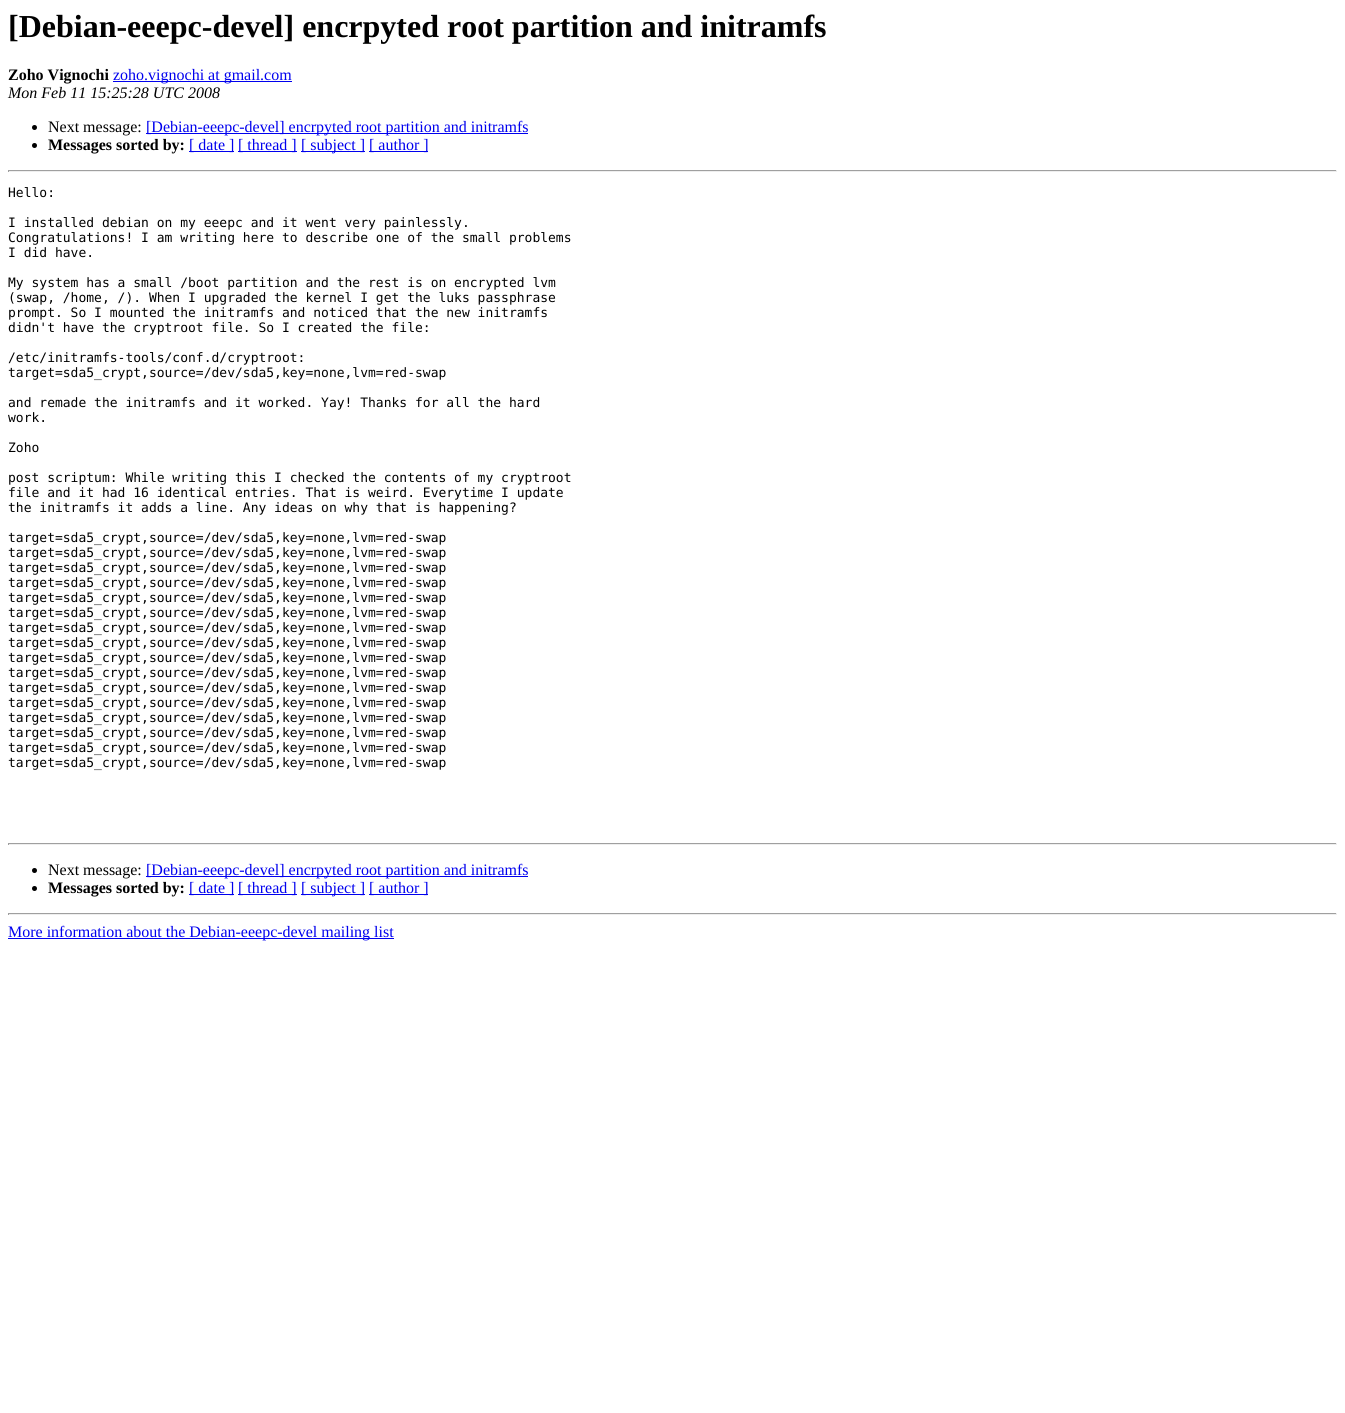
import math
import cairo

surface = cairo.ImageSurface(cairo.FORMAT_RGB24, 1345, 1413)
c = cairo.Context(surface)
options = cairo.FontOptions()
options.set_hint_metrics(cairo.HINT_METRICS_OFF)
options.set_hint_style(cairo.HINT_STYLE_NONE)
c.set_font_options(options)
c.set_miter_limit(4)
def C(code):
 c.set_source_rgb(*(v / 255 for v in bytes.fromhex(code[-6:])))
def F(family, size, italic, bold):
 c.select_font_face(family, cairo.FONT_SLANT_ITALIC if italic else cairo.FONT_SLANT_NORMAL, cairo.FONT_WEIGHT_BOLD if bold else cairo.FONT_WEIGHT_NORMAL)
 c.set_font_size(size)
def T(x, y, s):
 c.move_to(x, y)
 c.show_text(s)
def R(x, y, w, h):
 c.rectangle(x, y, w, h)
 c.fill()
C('ffffff')
c.paint()
F('Liberation Serif',32,0,1)
C('000000')
T(8,37,'[Debian-eeepc-devel] encrpyted root partition and initramfs')
F('Liberation Serif',16,0,1)
T(8,80,'Zoho Vignochi')
C('0000ee')
R(113,81,179,1)
F('Liberation Serif',16,0,0)
T(113,80,'zoho.vignochi at gmail.com')
F('Liberation Serif',16,1,0)
C('000000')
T(8,98,'Mon Feb 11 15:25:28 UTC 2008')
c.new_path()
c.arc(34.5,127.5,2.5,0,2 * math.pi)
c.fill()
F('Liberation Serif',16,0,0)
T(48,132,'Next message:')
C('0000ee')
R(146,133,382,1)
T(146,132,'[Debian-eeepc-devel] encrpyted root partition and initramfs')
C('000000')
c.new_path()
c.arc(34.5,145.5,2.5,0,2 * math.pi)
c.fill()
F('Liberation Serif',16,0,1)
T(48,150,'Messages sorted by:')
C('0000ee')
R(189,151,45,1)
F('Liberation Serif',16,0,0)
T(189,150,'[ date ]')
R(238,151,59,1)
T(238,150,'[ thread ]')
R(301,151,64,1)
T(301,150,'[ subject ]')
R(369,151,59,1)
T(369,150,'[ author ]')
C('9f9f9f')
R(8,170,1329,1)
C('eeeeee')
R(1336,170,1,2)
R(8,171,1329,1)
C('9f9f9f')
R(8,170,1,2)
F('DejaVu Sans Mono',13,0,0)
C('000000')
T(8,197,'Hello:')
T(8,227,'I installed debian on my eeepc and it went very painlessly.')
T(8,242,'Congratulations! I am writing here to describe one of the small problems')
T(8,257,'I did have.')
T(8,287,'My system has a small /boot partition and the rest is on encrypted lvm')
T(8,302,'(swap, /home, /). When I upgraded the kernel I get the luks passphrase')
T(8,317,'prompt. So I mounted the initramfs and noticed that the new initramfs')
T(8,332,'didn\'t have the cryptroot file. So I created the file:')
T(8,362,'/etc/initramfs-tools/conf.d/cryptroot:')
T(8,377,'target=sda5_crypt,source=/dev/sda5,key=none,lvm=red-swap')
T(8,407,'and remade the initramfs and it worked. Yay! Thanks for all the hard')
T(8,422,'work.')
T(8,452,'Zoho')
T(8,482,'post scriptum: While writing this I checked the contents of my cryptroot')
T(8,497,'file and it had 16 identical entries. That is weird. Everytime I update')
T(8,512,'the initramfs it adds a line. Any ideas on why that is happening?')
T(8,542,'target=sda5_crypt,source=/dev/sda5,key=none,lvm=red-swap')
T(8,557,'target=sda5_crypt,source=/dev/sda5,key=none,lvm=red-swap')
T(8,572,'target=sda5_crypt,source=/dev/sda5,key=none,lvm=red-swap')
T(8,587,'target=sda5_crypt,source=/dev/sda5,key=none,lvm=red-swap')
T(8,602,'target=sda5_crypt,source=/dev/sda5,key=none,lvm=red-swap')
T(8,617,'target=sda5_crypt,source=/dev/sda5,key=none,lvm=red-swap')
T(8,632,'target=sda5_crypt,source=/dev/sda5,key=none,lvm=red-swap')
T(8,647,'target=sda5_crypt,source=/dev/sda5,key=none,lvm=red-swap')
T(8,662,'target=sda5_crypt,source=/dev/sda5,key=none,lvm=red-swap')
T(8,677,'target=sda5_crypt,source=/dev/sda5,key=none,lvm=red-swap')
T(8,692,'target=sda5_crypt,source=/dev/sda5,key=none,lvm=red-swap')
T(8,707,'target=sda5_crypt,source=/dev/sda5,key=none,lvm=red-swap')
T(8,722,'target=sda5_crypt,source=/dev/sda5,key=none,lvm=red-swap')
T(8,737,'target=sda5_crypt,source=/dev/sda5,key=none,lvm=red-swap')
T(8,752,'target=sda5_crypt,source=/dev/sda5,key=none,lvm=red-swap')
T(8,767,'target=sda5_crypt,source=/dev/sda5,key=none,lvm=red-swap')
C('9f9f9f')
R(8,843,1329,1)
C('eeeeee')
R(1336,843,1,2)
R(8,844,1329,1)
C('9f9f9f')
R(8,843,1,2)
C('000000')
c.new_path()
c.arc(34.5,870.5,2.5,0,2 * math.pi)
c.fill()
F('Liberation Serif',16,0,0)
T(48,875,'Next message:')
C('0000ee')
R(146,876,382,1)
T(146,875,'[Debian-eeepc-devel] encrpyted root partition and initramfs')
C('000000')
c.new_path()
c.arc(34.5,888.5,2.5,0,2 * math.pi)
c.fill()
F('Liberation Serif',16,0,1)
T(48,893,'Messages sorted by:')
C('0000ee')
R(189,894,45,1)
F('Liberation Serif',16,0,0)
T(189,893,'[ date ]')
R(238,894,59,1)
T(238,893,'[ thread ]')
R(301,894,64,1)
T(301,893,'[ subject ]')
R(369,894,59,1)
T(369,893,'[ author ]')
C('9f9f9f')
R(8,913,1329,1)
C('eeeeee')
R(1336,913,1,2)
R(8,914,1329,1)
C('9f9f9f')
R(8,913,1,2)
C('0000ee')
R(8,938,386,1)
T(8,937,'More information about the Debian-eeepc-devel mailing list')
surface.write_to_png('o.png')
